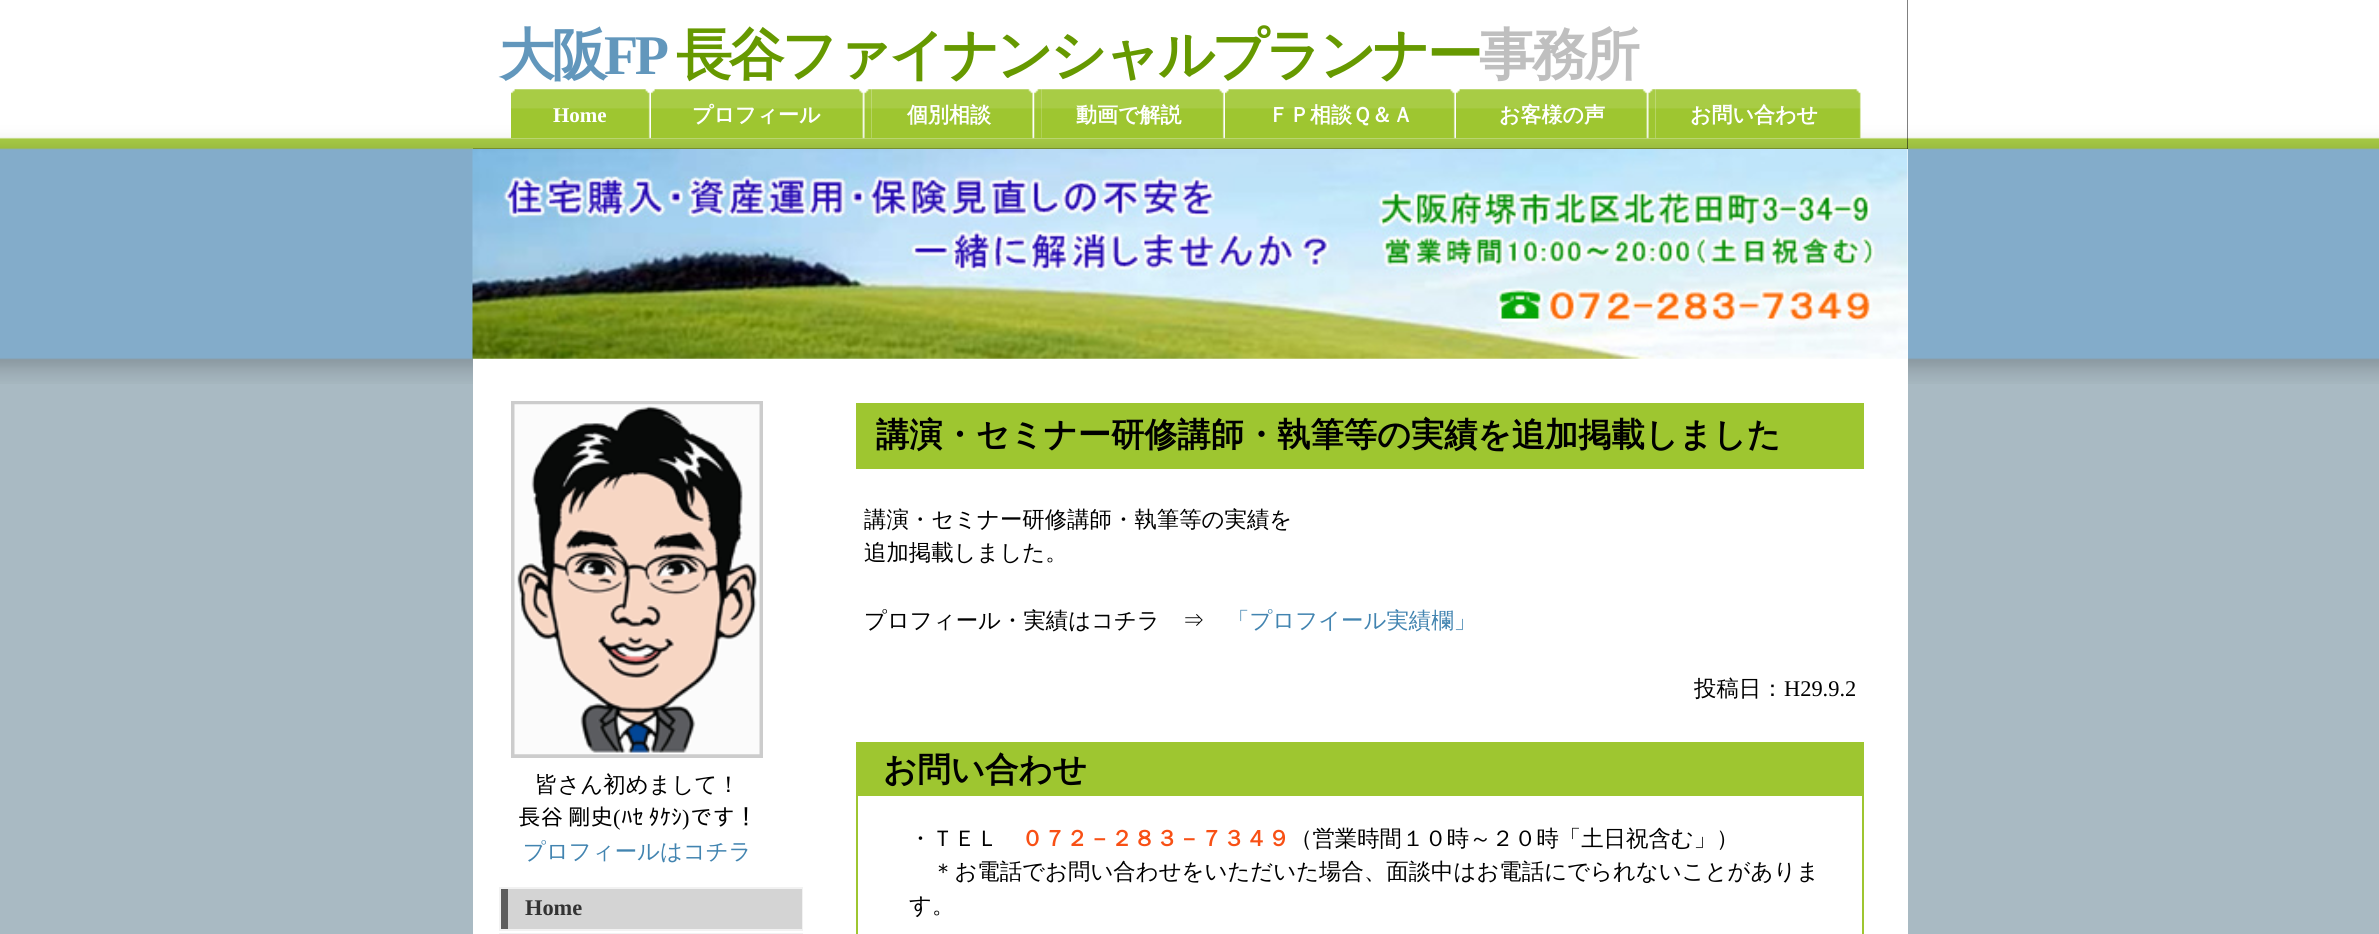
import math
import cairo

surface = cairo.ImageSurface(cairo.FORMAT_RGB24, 2379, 934)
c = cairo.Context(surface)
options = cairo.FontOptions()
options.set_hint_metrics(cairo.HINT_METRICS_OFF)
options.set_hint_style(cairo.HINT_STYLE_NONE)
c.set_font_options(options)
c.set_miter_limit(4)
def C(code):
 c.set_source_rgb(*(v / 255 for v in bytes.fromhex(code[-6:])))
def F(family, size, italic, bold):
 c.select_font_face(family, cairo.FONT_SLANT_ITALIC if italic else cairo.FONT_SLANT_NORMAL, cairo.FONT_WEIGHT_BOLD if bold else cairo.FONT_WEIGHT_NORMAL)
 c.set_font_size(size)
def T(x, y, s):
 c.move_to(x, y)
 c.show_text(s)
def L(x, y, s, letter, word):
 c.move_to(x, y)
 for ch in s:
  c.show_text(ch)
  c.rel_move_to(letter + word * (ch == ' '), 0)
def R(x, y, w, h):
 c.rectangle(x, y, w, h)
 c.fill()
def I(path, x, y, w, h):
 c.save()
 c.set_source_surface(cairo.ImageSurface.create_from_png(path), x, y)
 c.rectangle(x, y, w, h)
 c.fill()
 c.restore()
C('a9bac3')
c.paint()
I('1.png',0,0,2379,384)
C('ffffff')
R(473,149,1435,785)
I('14.png',472,148,1436,211)
C('000000')
R(473,0,1435,149)
I('2.png',472,0,1436,149)
F('WenQuanYi Zen Hei',56,0,1)
C('6297bc')
L(499,74,'大阪',-3.5,0)
F('Liberation Serif',56,0,1)
L(604,74,'FP',-3.5,0)
F('WenQuanYi Zen Hei',56,0,1)
C('669900')
L(676,74,'長谷ファイナンシャルプランナー',-3.5,0)
C('bfbfbf')
L(1479,74,'事務所',-3.5,0)
I('3.png',511,89,7,50)
I('4.png',518,89,132,50)
F('Liberation Serif',21,0,1)
C('ffffff')
T(553,122,'Home')
I('3.png',651,89,7,50)
I('5.png',658,89,206,50)
F('WenQuanYi Zen Hei',21,0,1)
T(692,122,'プロフィール')
I('6.png',864,89,8,50)
I('7.png',871,89,162,50)
T(907,122,'個別相談')
I('8.png',1034,89,8,50)
I('9.png',1041,89,183,50)
T(1076,122,'動画で解説')
I('10.png',1225,89,7,50)
I('11.png',1232,89,223,50)
T(1268,122,'ＦＰ相談Ｑ＆Ａ')
I('3.png',1456,89,7,50)
I('12.png',1463,89,185,50)
T(1499,122,'お客様の声')
I('6.png',1648,89,8,50)
I('13.png',1655,89,206,50)
T(1690,122,'お問い合わせ')
c.rectangle(513,403,248,353)
C('cccccc')
c.set_line_width(4)
c.stroke()
I('15.png',514,404,246,351)
F('WenQuanYi Zen Hei Medium',22.4,0,0)
C('000000')
T(535,792,'皆さん初めまして！')
F('IPAGothic',22.4,0,0)
L(518,825,'長谷 剛史',0,-6)
F('Liberation Serif',22.4,0,0)
T(613,825,'(')
F('IPAGothic',22.4,0,0)
L(621,825,'ﾊｾ ﾀｹｼ',0,-6)
F('Liberation Serif',22.4,0,0)
T(682,825,')')
F('IPAGothic',22.4,0,0)
T(690,825,'です！')
F('WenQuanYi Zen Hei Medium',22.4,0,0)
C('4284b0')
T(523,859,'プロフィールはコチラ')
c.rectangle(500,888,302,42)
C('f2f2f2')
c.set_line_width(2)
c.stroke()
C('d4d4d4')
R(508,889,294,40)
C('5d5d5d')
R(501,889,7,40)
F('Liberation Serif',22.4,0,1)
C('333333')
T(525,915,'Home')
c.rectangle(500,934,302,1)
C('f2f2f2')
c.stroke()
C('9ec630')
R(856,403,1008,66)
F('WenQuanYi Zen Hei',33.25,0,1)
C('000000')
T(876,446,'講演・セミナー研修講師・執筆等の実績を追加掲載しました')
F('WenQuanYi Zen Hei Medium',22.4,0,0)
T(864,527,'講演・セミナー研修講師・執筆等の実績を')
T(864,560,'追加掲載しました。')
T(864,628,'プロフィール・実績はコチラ　⇒')
C('4284b0')
T(1227,628,'「プロフイール実績欄」')
C('000000')
T(1694,696,'投稿日：')
F('Liberation Serif',22.4,0,0)
T(1784,696,'H29.9.2')
C('9ec630')
R(856,742,1008,54)
F('WenQuanYi Zen Hei',33.5,0,1)
C('000000')
T(883,781,'お問い合わせ')
C('9ec630')
R(1862,796,2,138)
R(856,796,2,138)
F('WenQuanYi Zen Hei Medium',22.4,0,0)
C('000000')
T(909,846,'・ＴＥＬ')
F('WenQuanYi Zen Hei',22.4,0,1)
C('f85015')
T(1021,846,'０７２－２８３－７３４９')
F('WenQuanYi Zen Hei Medium',22.4,0,0)
C('000000')
T(1290,846,'（営業時間１０時～２０時「土日祝含む」）')
T(932,879,'＊お電話でお問い合わせをいただいた場合、面談中はお電話にでられないことがありま')
T(909,913,'す。')
surface.write_to_png('o.png')
